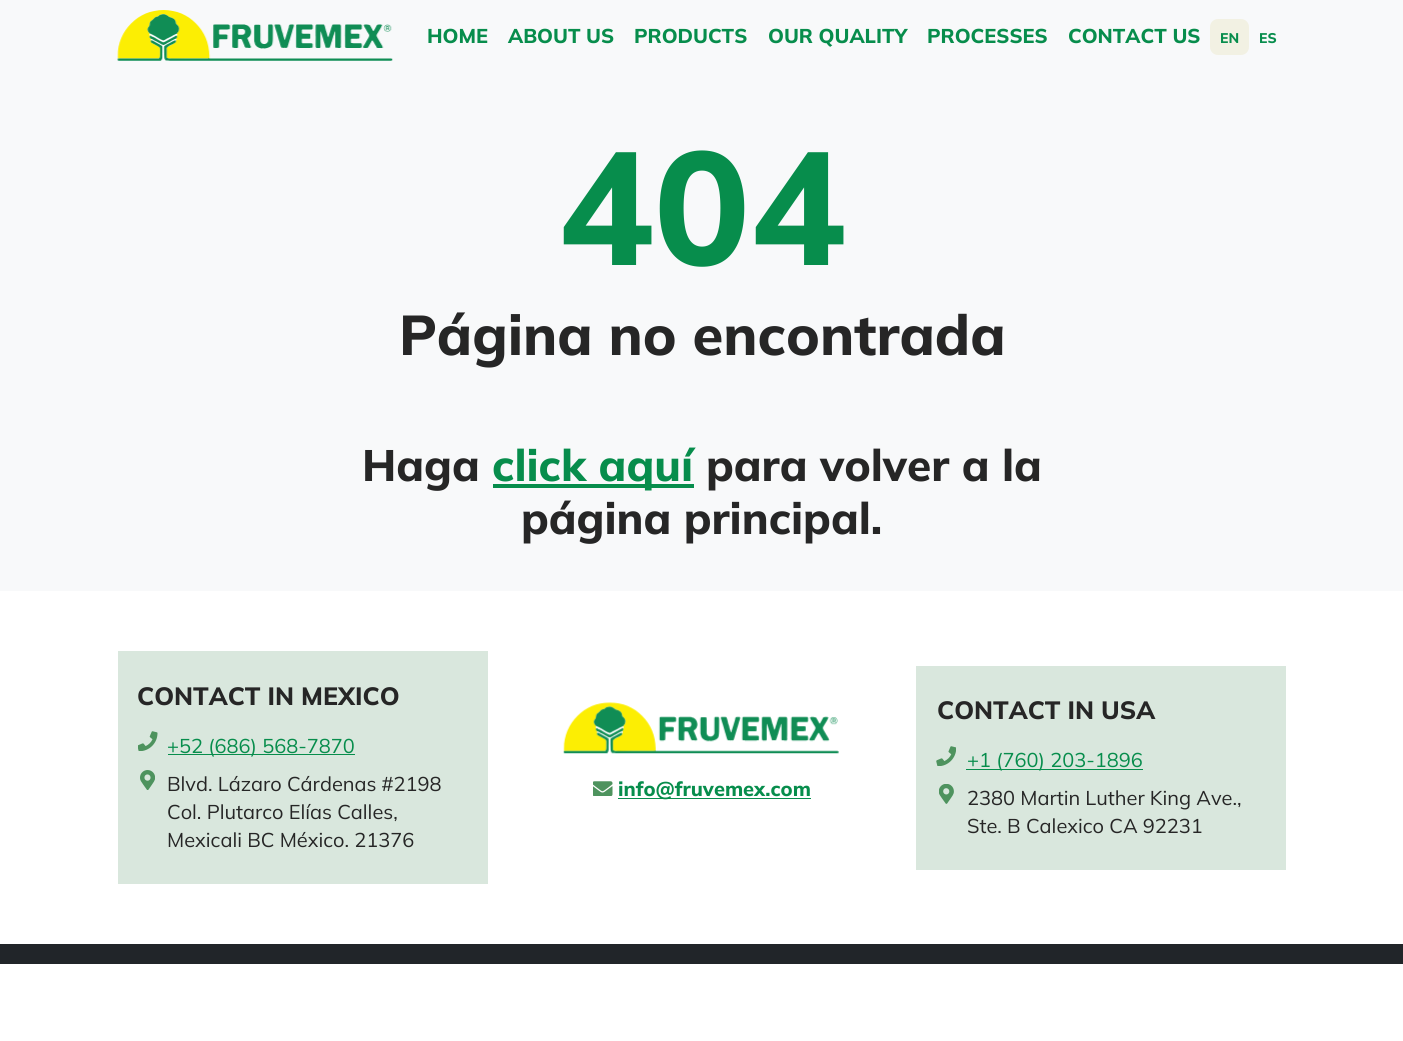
import math
import cairo

surface = cairo.ImageSurface(cairo.FORMAT_RGB24, 1403, 1041)
c = cairo.Context(surface)
options = cairo.FontOptions()
options.set_hint_metrics(cairo.HINT_METRICS_OFF)
options.set_hint_style(cairo.HINT_STYLE_NONE)
c.set_font_options(options)
c.set_miter_limit(4)
def C(code):
 c.set_source_rgb(*(v / 255 for v in bytes.fromhex(code[-6:])))
def F(family, size, italic, bold):
 c.select_font_face(family, cairo.FONT_SLANT_ITALIC if italic else cairo.FONT_SLANT_NORMAL, cairo.FONT_WEIGHT_BOLD if bold else cairo.FONT_WEIGHT_NORMAL)
 c.set_font_size(size)
def T(x, y, s):
 c.move_to(x, y)
 c.show_text(s)
def R(x, y, w, h):
 c.rectangle(x, y, w, h)
 c.fill()
def Q(x, y, w, h, r):
 c.new_sub_path()
 for i, (u, v) in enumerate([(x + w - r, y + h - r), (x + r, y + h - r), (x + r, y + r), (x + w - r, y + r)]):
  c.arc(u, v, r, i * math.pi / 2, (i + 1) * math.pi / 2)
 c.close_path()
def I(path, x, y, w, h):
 c.save()
 c.set_source_surface(cairo.ImageSurface.create_from_png(path), x, y)
 c.rectangle(x, y, w, h)
 c.fill()
 c.restore()
C('ffffff')
c.paint()
C('f8f9fa')
R(0,0,1403,591)
I('1.png',117,10,276,51)
F('Mulish ExtraBold',20,0,0)
C('078d4c')
T(427,43,'HOME')
T(508,43,'ABOUT US')
T(634,43,'PRODUCTS')
T(768,43,'OUR QUALITY')
T(927,43,'PROCESSES')
T(1068,43,'CONTACT US')
C('f2f1e3')
Q(1210,19,39,36,8)
c.fill()
F('Mulish ExtraBold',14,0,0)
C('078d4c')
T(1220,43,'EN')
T(1259,43,'ES')
F('Mulish ExtraBold',160,0,0)
T(558,265,'404')
F('Mulish ExtraBold',56,0,0)
C('262626')
T(399,355,'Página no encontrada')
F('Mulish ExtraBold',44,0,0)
T(362,481,'Haga')
C('078d4c')
R(493,484,201,4)
T(492,481,'click aquí')
C('262626')
T(706,481,'para volver a la')
T(521,534,'página principal.')
C('d9e7dd')
R(118,651,370,233)
F('Mulish ExtraBold',25,0,0)
C('262626')
T(137,705,'CONTACT IN MEXICO')
I('2.png',138,731,20,20)
C('078d4c')
R(168,754,187,1)
F('Mulish',20,0,0)
T(167,753,'+52 (686) 568-7870')
I('3.png',140,770,15,20)
C('262626')
T(167,791,'Blvd. Lázaro Cárdenas #2198')
T(167,819,'Col. Plutarco Elías Calles,')
T(167,847,'Mexicali BC México. 21376')
I('4.png',563,702,276,52)
I('5.png',593,781,20,15)
C('078d4c')
R(618,798,193,1)
F('Mulish ExtraBold',20,0,0)
T(618,796,'info@fruvemex.com')
C('d9e7dd')
R(916,666,370,204)
F('Mulish ExtraBold',25,0,0)
C('262626')
T(937,719,'CONTACT IN USA')
I('6.png',936,746,20,20)
C('078d4c')
R(966,769,177,1)
F('Mulish',20,0,0)
T(967,767,'+1 (760) 203-1896')
I('7.png',939,784,15,20)
C('262626')
T(967,805,'2380 Martin Luther King Ave.,')
T(967,833,'Ste. B Calexico CA 92231')
C('212529')
R(0,944,1403,20)
surface.write_to_png('o.png')
